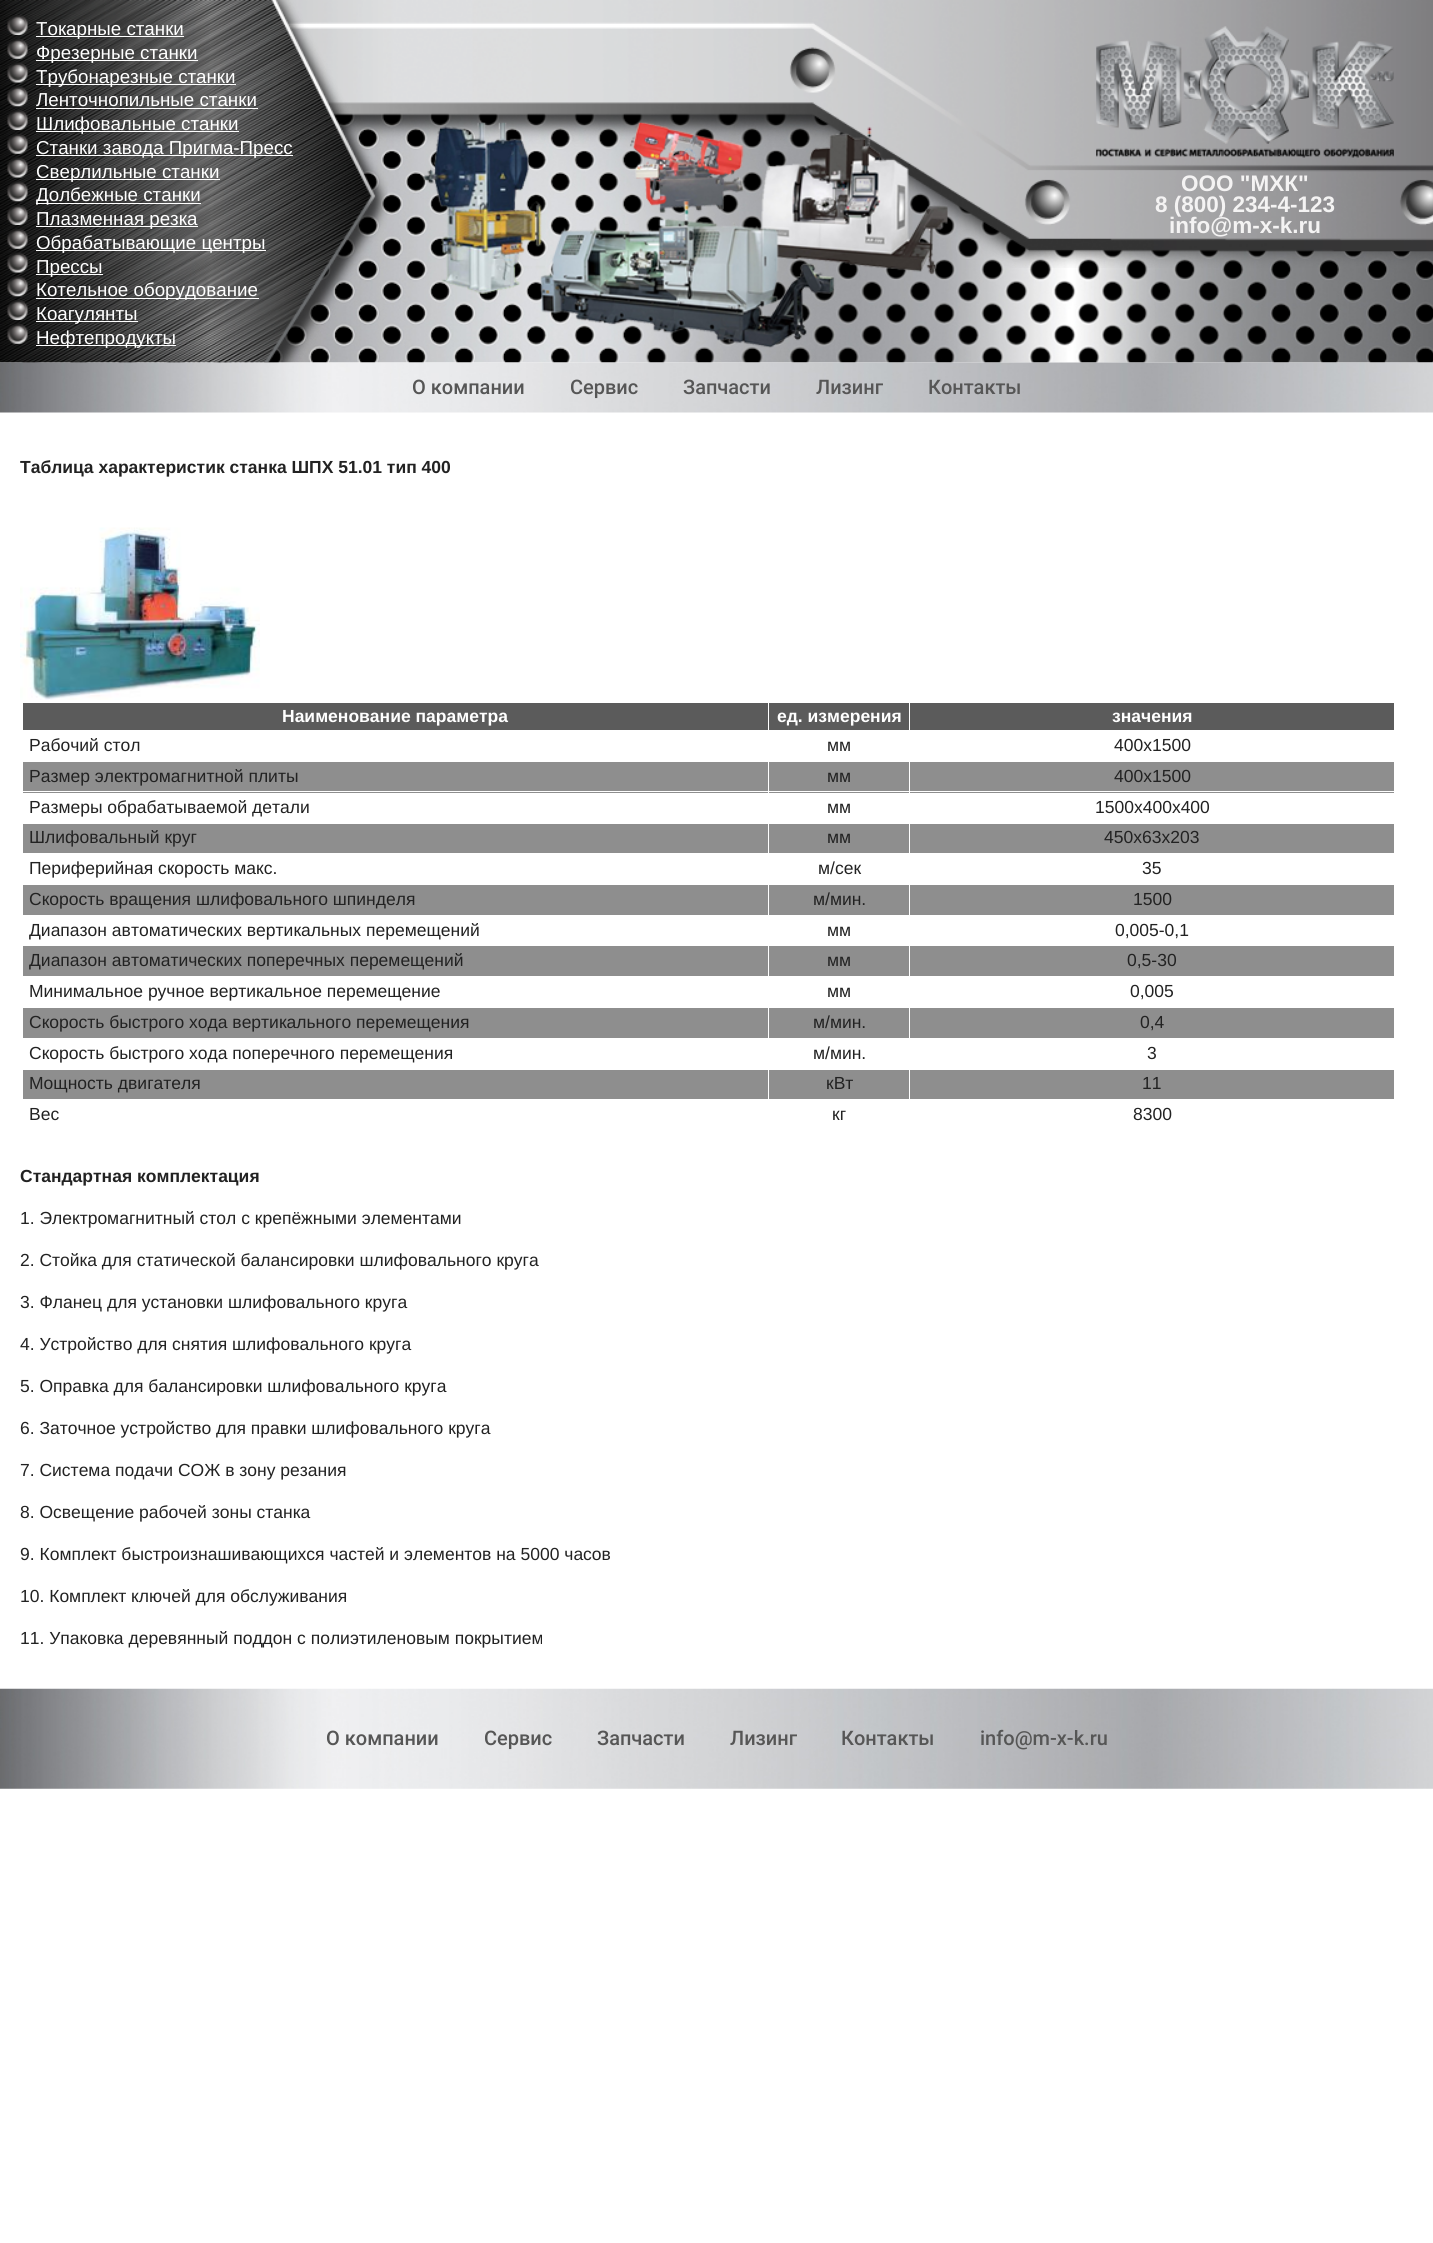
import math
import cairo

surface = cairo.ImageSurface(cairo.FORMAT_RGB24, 1433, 2243)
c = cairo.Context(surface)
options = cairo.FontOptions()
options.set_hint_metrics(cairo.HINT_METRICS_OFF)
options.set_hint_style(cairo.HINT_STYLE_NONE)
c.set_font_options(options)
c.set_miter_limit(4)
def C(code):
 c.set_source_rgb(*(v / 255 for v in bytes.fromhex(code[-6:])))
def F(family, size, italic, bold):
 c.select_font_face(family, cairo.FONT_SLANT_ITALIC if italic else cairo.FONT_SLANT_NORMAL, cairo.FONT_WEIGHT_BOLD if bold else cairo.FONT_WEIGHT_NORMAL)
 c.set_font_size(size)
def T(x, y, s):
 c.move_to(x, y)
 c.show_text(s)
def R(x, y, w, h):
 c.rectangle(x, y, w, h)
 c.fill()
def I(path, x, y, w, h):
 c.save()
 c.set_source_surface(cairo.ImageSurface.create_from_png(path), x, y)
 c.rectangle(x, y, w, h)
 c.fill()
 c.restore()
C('ffffff')
c.paint()
I('1.png',0,113,1433,250)
I('2.png',274,0,1159,268)
I('3.png',0,0,388,363)
I('4.png',7,15,21,20)
C('ffffff')
R(36,36,148,1)
F('Liberation Sans',18.75,0,0)
T(36,35,'Токарные станки')
I('5.png',7,38,21,21)
R(36,60,162,1)
T(36,59,'Фрезерные станки')
I('6.png',7,62,21,21)
R(36,84,200,1)
T(36,83,'Трубонарезные станки')
I('7.png',7,86,21,21)
T(36,106,'Ленточнопильные станки')
R(36,108,222,1)
I('8.png',7,110,21,20)
R(36,131,203,1)
T(36,130,'Шлифовальные станки')
I('9.png',7,133,21,21)
R(36,155,257,1)
T(36,154,'Станки завода Пригма-Пресс')
I('10.png',7,157,21,21)
R(36,179,184,1)
T(36,178,'Сверлильные станки')
I('11.png',7,181,21,21)
R(36,203,165,1)
T(36,201,'Долбежные станки')
I('12.png',7,205,21,20)
R(36,226,162,1)
T(36,225,'Плазменная резка')
I('13.png',7,228,21,21)
R(36,250,230,1)
T(36,249,'Обрабатывающие центры')
I('14.png',7,252,21,21)
R(36,274,67,1)
T(36,273,'Прессы')
I('15.png',7,276,21,21)
R(36,298,223,1)
T(36,296,'Котельное оборудование')
I('16.png',7,300,21,20)
R(36,321,102,1)
T(36,320,'Коагулянты')
I('17.png',7,323,21,21)
R(36,345,140,1)
T(36,344,'Нефтепродукты')
I('18.png',423,122,525,226)
I('19.png',1096,26,298,132)
F('Liberation Sans',22.5,0,1)
C('f4f3f3')
T(1181,191,'ООО "МХК"')
T(1155,212,'8 (800) 234-4-123')
T(1169,233,'info@m-x-k.ru')
I('20.png',0,362,1433,51)
F('Roboto Medium',20,0,0)
C('565656')
T(412,394,'О компании')
T(570,394,'Сервис')
T(683,394,'Запчасти')
T(816,394,'Лизинг')
T(928,394,'Контакты')
F('Liberation Sans',17.5,0,1)
C('222222')
T(20,473,'Таблица характеристик станка ШПХ 51.01 тип 400')
I('21.png',20,527,240,173)
C('5b5b5b')
R(23,703,745,27)
C('ffffff')
T(282,722,'Наименование параметра')
C('5b5b5b')
R(769,703,140,27)
C('ffffff')
T(777,722,'ед. измерения')
C('5b5b5b')
R(910,703,484,27)
C('ffffff')
T(1112,722,'значения')
F('Liberation Sans',17.5,0,0)
C('222222')
T(29,751,'Рабочий стол')
T(827,751,'мм')
T(1114,751,'400x1500')
C('8e8e8e')
R(23,762,1371,31)
C('222222')
T(29,782,'Размер электромагнитной плиты')
C('ffffff')
R(909,791,487,1)
R(909,791,1,2)
R(768,791,142,1)
R(768,791,1,2)
R(21,791,748,1)
R(768,761,1,32)
C('222222')
T(827,782,'мм')
C('ffffff')
R(909,761,1,32)
C('222222')
T(1114,782,'400x1500')
T(29,813,'Размеры обрабатываемой детали')
T(827,813,'мм')
T(1095,813,'1500x400x400')
C('8e8e8e')
R(23,824,1371,29)
C('222222')
T(29,843,'Шлифовальный круг')
C('ffffff')
R(768,823,1,31)
C('222222')
T(827,843,'мм')
C('ffffff')
R(909,823,1,31)
C('222222')
T(1104,843,'450x63x203')
T(29,874,'Периферийная скорость макс.')
T(818,874,'м/сек')
T(1142,874,'35')
C('8e8e8e')
R(23,885,1371,30)
C('222222')
T(29,905,'Скорость вращения шлифовального шпинделя')
C('ffffff')
R(768,884,1,32)
C('222222')
T(813,905,'м/мин.')
C('ffffff')
R(909,884,1,32)
C('222222')
T(1133,905,'1500')
T(29,936,'Диапазон автоматических вертикальных перемещений')
T(827,936,'мм')
T(1115,936,'0,005-0,1')
C('8e8e8e')
R(23,946,1371,30)
C('222222')
T(29,966,'Диапазон автоматических поперечных перемещений')
C('ffffff')
R(768,945,1,33)
C('222222')
T(827,966,'мм')
C('ffffff')
R(909,945,1,33)
C('222222')
T(1127,966,'0,5-30')
T(29,997,'Минимальное ручное вертикальное перемещение')
T(827,997,'мм')
T(1130,997,'0,005')
C('8e8e8e')
R(23,1008,1371,30)
C('222222')
T(29,1028,'Скорость быстрого хода вертикального перемещения')
C('ffffff')
R(768,1006,1,33)
C('222222')
T(813,1028,'м/мин.')
C('ffffff')
R(909,1006,1,33)
C('222222')
T(1140,1028,'0,4')
T(29,1059,'Скорость быстрого хода поперечного перемещения')
T(813,1059,'м/мин.')
T(1147,1059,'3')
C('8e8e8e')
R(23,1070,1371,29)
C('222222')
T(29,1089,'Мощность двигателя')
C('ffffff')
R(768,1069,1,31)
C('222222')
T(826,1089,'кВт')
C('ffffff')
R(909,1069,1,31)
C('222222')
T(1142,1089,'11')
T(29,1120,'Вес')
T(832,1120,'кг')
T(1133,1120,'8300')
F('Liberation Sans',17.5,0,1)
T(20,1182,'Стандартная комплектация')
F('Liberation Sans',17.5,0,0)
T(20,1224,'1. Электромагнитный стол с крепёжными элементами')
T(20,1266,'2. Стойка для статической балансировки шлифовального круга')
T(20,1308,'3. Фланец для установки шлифовального круга')
T(20,1350,'4. Устройство для снятия шлифовального круга')
T(20,1392,'5. Оправка для балансировки шлифовального круга')
T(20,1434,'6. Заточное устройство для правки шлифовального круга')
T(20,1476,'7. Система подачи СОЖ в зону резания')
T(20,1518,'8. Освещение рабочей зоны станка')
T(20,1560,'9. Комплект быстроизнашивающихся частей и элементов на 5000 часов')
T(20,1602,'10. Комплект ключей для обслуживания')
T(20,1644,'11. Упаковка деревянный поддон с полиэтиленовым покрытием')
I('22.png',0,1688,1433,101)
F('Roboto Medium',20,0,0)
C('565656')
T(326,1745,'О компании')
T(484,1745,'Сервис')
T(597,1745,'Запчасти')
T(730,1745,'Лизинг')
T(841,1745,'Контакты')
T(980,1745,'info@m-x-k.ru')
surface.write_to_png('o.png')
